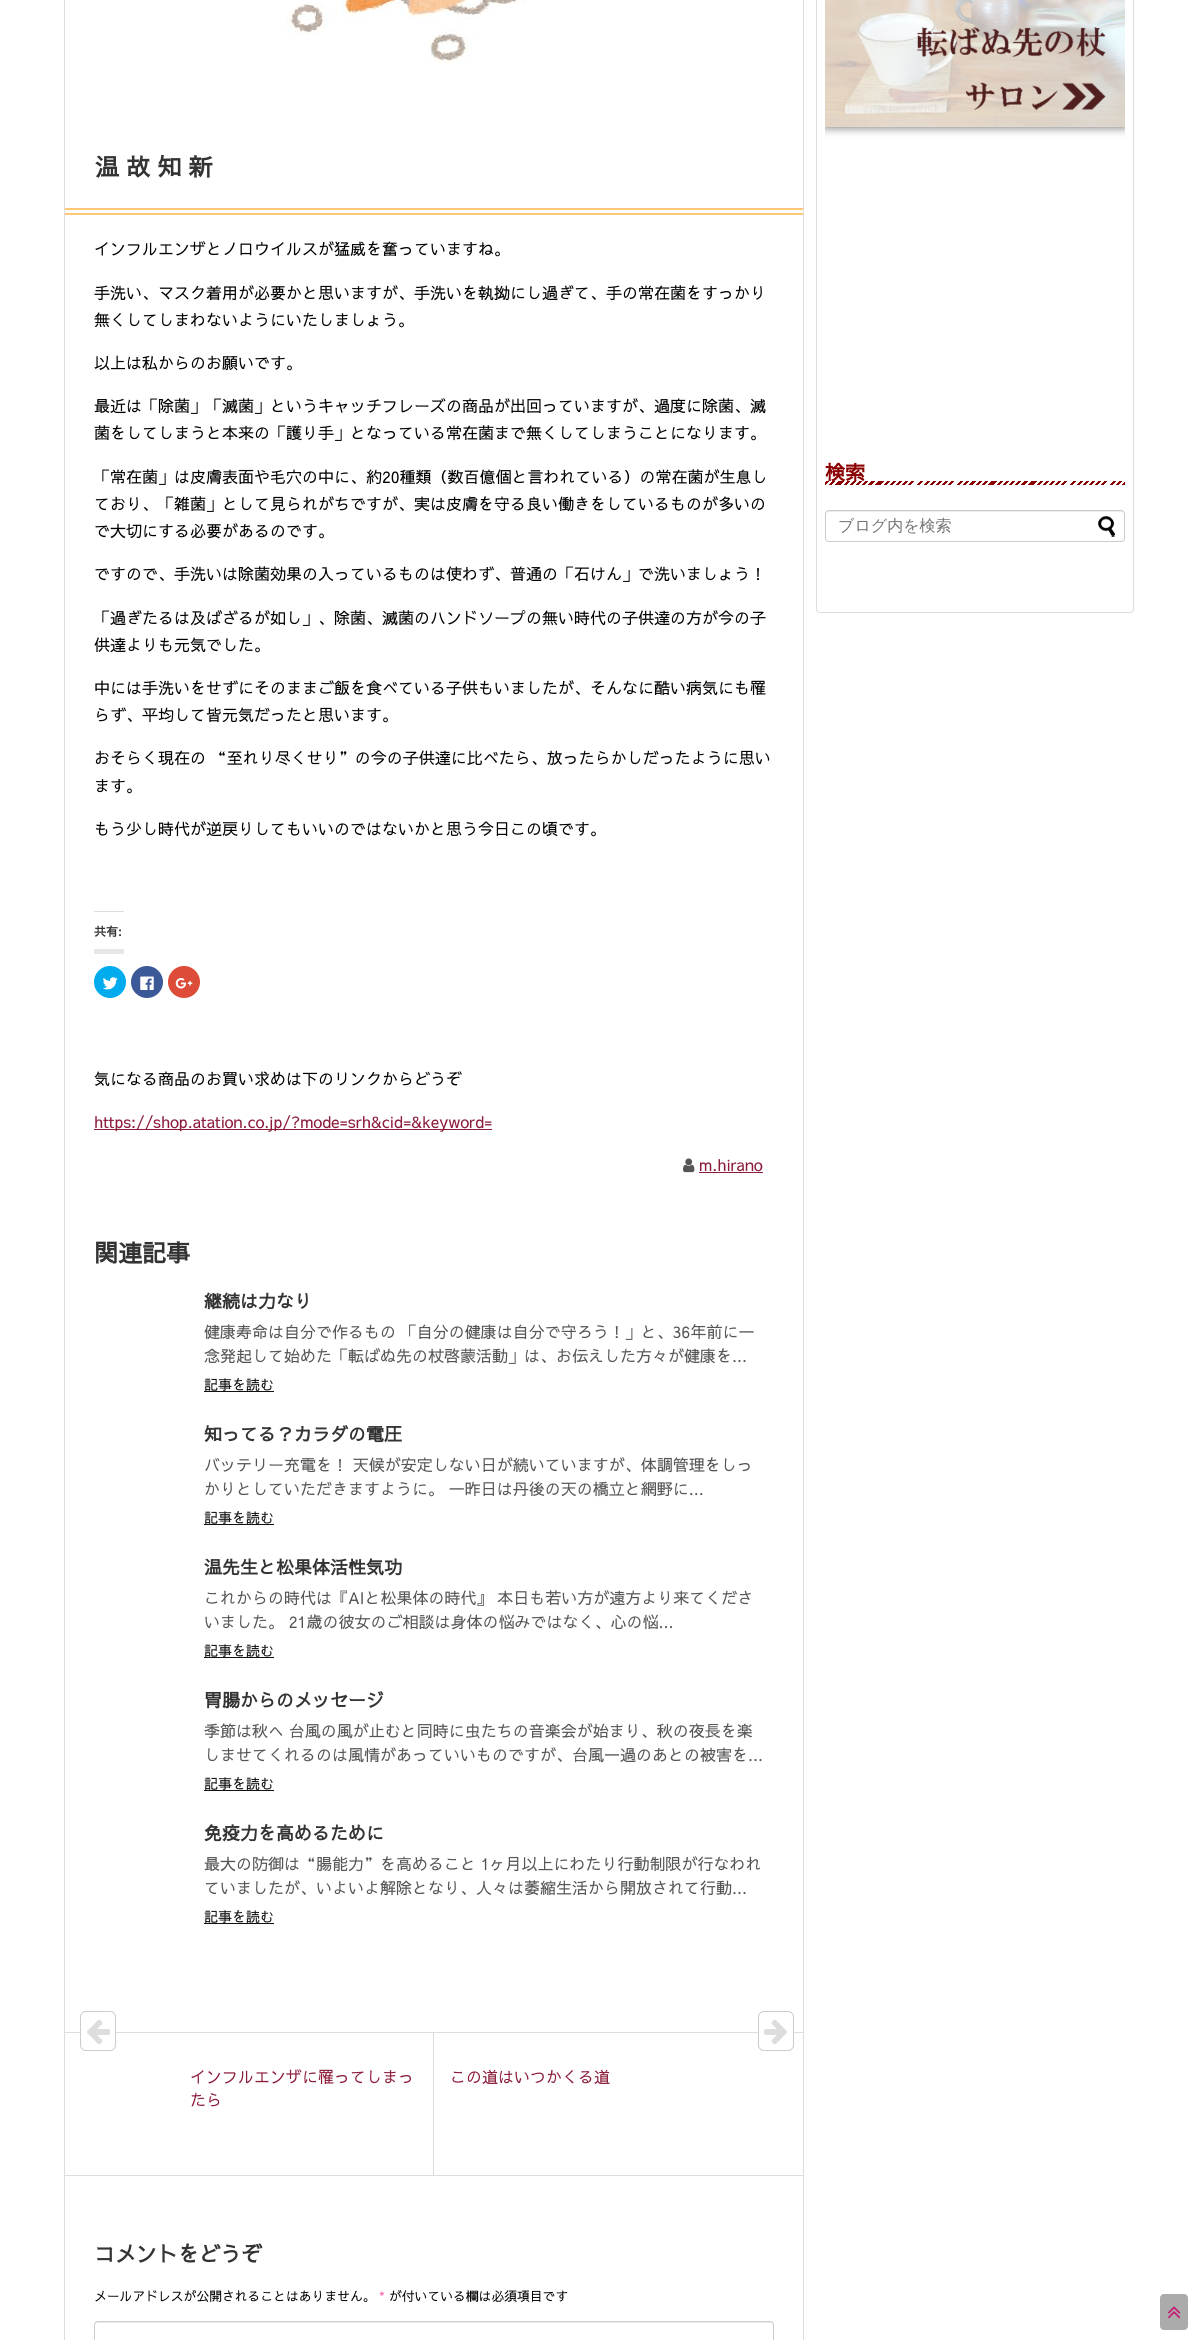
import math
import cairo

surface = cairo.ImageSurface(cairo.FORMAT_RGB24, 1198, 2340)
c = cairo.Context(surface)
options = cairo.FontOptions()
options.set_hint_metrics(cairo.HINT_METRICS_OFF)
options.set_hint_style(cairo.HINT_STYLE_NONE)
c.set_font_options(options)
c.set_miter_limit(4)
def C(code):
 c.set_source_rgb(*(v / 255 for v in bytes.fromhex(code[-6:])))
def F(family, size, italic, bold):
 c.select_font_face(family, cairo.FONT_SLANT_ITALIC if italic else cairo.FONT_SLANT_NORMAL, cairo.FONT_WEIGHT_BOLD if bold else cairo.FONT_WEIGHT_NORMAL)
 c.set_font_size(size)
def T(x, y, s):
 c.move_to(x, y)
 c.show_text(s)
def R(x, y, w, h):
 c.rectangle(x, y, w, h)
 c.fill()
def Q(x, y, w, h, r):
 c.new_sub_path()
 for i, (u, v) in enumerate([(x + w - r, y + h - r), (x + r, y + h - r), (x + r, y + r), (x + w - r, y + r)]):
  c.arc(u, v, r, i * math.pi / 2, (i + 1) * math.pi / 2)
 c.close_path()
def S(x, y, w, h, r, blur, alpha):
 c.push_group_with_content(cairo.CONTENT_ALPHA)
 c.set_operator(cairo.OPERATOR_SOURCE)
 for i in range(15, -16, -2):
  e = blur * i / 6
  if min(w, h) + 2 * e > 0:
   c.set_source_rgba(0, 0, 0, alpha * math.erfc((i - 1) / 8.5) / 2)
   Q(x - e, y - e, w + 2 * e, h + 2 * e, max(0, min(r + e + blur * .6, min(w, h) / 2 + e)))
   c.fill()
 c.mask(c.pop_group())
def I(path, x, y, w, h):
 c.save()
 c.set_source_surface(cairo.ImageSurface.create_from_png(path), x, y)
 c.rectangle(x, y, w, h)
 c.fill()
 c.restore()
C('ffffff')
c.paint()
c.rectangle(64.5,-.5,739,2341)
C('dddddd')
c.set_line_width(1)
c.stroke()
I('1.png',286,0,240,68)
C('ffc778')
R(65,208,738,2)
R(65,213,738,2)
F('Sawarabi Gothic',24,0,1)
C('333333')
T(95,176,'温 故 知 新')
F('Sawarabi Gothic',16,0,0)
C('000000')
T(94,255,'インフルエンザとノロウイルスが猛威を奮っていますね。')
T(94,299,'手洗い、マスク着用が必要かと思いますが、手洗いを執拗にし過ぎて、手の常在菌をすっかり')
T(94,326,'無くしてしまわないようにいたしましょう。')
T(94,369,'以上は私からのお願いです。')
T(94,412,'最近は「除菌」「滅菌」というキャッチフレーズの商品が出回っていますが、過度に除菌、滅')
T(94,439,'菌をしてしまうと本来の「護り手」となっている常在菌まで無くしてしまうことになります。')
T(94,483,'「常在菌」は皮膚表面や毛穴の中に、約20種類（数百億個と言われている）の常在菌が生息し')
T(94,510,'ており、「雑菌」として見られがちですが、実は皮膚を守る良い働きをしているものが多いの')
T(94,537,'で大切にする必要があるのです。')
T(94,580,'ですので、手洗いは除菌効果の入っているものは使わず、普通の「石けん」で洗いましょう！')
T(94,624,'「過ぎたるは及ばざるが如し」、除菌、滅菌のハンドソープの無い時代の子供達の方が今の子')
T(94,651,'供達よりも元気でした。')
T(94,694,'中には手洗いをせずにそのままご飯を食べている子供もいましたが、そんなに酷い病気にも罹')
T(94,721,'らず、平均して皆元気だったと思います。')
T(94,764,'おそらく現在の “至れり尽くせり”の今の子供達に比べたら、放ったらかしだったように思い')
T(94,792,'ます。')
T(94,835,'もう少し時代が逆戻りしてもいいのではないかと思う今日この頃です。')
C('e7e7e7')
R(94,949,30,5)
C('dddddd')
R(94,911,30,1)
F('Sawarabi Gothic',12,0,1)
C('333333')
T(94,936,'共有:')
C('00acee')
c.new_path()
c.arc(110,982,16,0,2 * math.pi)
c.fill()
I('2.png',102,977,16,13)
C('3b5998')
c.arc(147,982,16,0,2 * math.pi)
c.fill()
I('3.png',140,976,14,14)
C('dd4b39')
c.arc(184,982,16,0,2 * math.pi)
c.fill()
I('4.png',175,978,18,11)
F('Sawarabi Gothic',16,0,0)
C('000000')
T(94,1085,'気になる商品のお買い求めは下のリンクからどうぞ')
C('8c1d3a')
R(94,1129,398,1)
T(94,1128,'https://shop.atation.co.jp/?mode=srh&cid=&keyword=')
I('5.png',683,1158,12,15)
T(699,1171,'m.hirano')
R(699,1172,64,1)
F('Sawarabi Gothic',24,0,1)
C('333333')
T(94,1262,'関連記事')
F('Sawarabi Gothic',18,0,1)
T(204,1308,'継続は力なり')
F('Sawarabi Gothic',16,0,0)
C('555555')
T(204,1338,'健康寿命は自分で作るもの 「自分の健康は自分で守ろう！」と、36年前に一')
T(204,1362,'念発起して始めた「転ばぬ先の杖啓蒙活動」は、お伝えした方々が健康を...')
F('Sawarabi Gothic',14,0,0)
C('111111')
T(204,1390,'記事を読む')
R(204,1391,70,1)
F('Sawarabi Gothic',18,0,1)
C('333333')
T(204,1441,'知ってる？カラダの電圧')
F('Sawarabi Gothic',16,0,0)
C('555555')
T(204,1471,'バッテリー充電を！ 天候が安定しない日が続いていますが、体調管理をしっ')
T(204,1495,'かりとしていただきますように。 一昨日は丹後の天の橋立と網野に...')
F('Sawarabi Gothic',14,0,0)
C('111111')
T(204,1523,'記事を読む')
R(204,1524,70,1)
F('Sawarabi Gothic',18,0,1)
C('333333')
T(204,1574,'温先生と松果体活性気功')
F('Sawarabi Gothic',16,0,0)
C('555555')
T(204,1604,'これからの時代は『AIと松果体の時代』 本日も若い方が遠方より来てくださ')
T(204,1628,'いました。 21歳の彼女のご相談は身体の悩みではなく、心の悩...')
F('Sawarabi Gothic',14,0,0)
C('111111')
T(204,1656,'記事を読む')
R(204,1657,70,1)
F('Sawarabi Gothic',18,0,1)
C('333333')
T(204,1707,'胃腸からのメッセージ')
F('Sawarabi Gothic',16,0,0)
C('555555')
T(204,1737,'季節は秋へ 台風の風が止むと同時に虫たちの音楽会が始まり、秋の夜長を楽')
T(204,1761,'しませてくれるのは風情があっていいものですが、台風一過のあとの被害を...')
F('Sawarabi Gothic',14,0,0)
C('111111')
T(204,1789,'記事を読む')
R(204,1790,70,1)
F('Sawarabi Gothic',18,0,1)
C('333333')
T(204,1840,'免疫力を高めるために')
F('Sawarabi Gothic',16,0,0)
C('555555')
T(204,1870,'最大の防御は“腸能力”を高めること 1ヶ月以上にわたり行動制限が行なわれ')
T(204,1894,'ていましたが、いよいよ解除となり、人々は萎縮生活から開放されて行動...')
F('Sawarabi Gothic',14,0,0)
C('111111')
T(204,1922,'記事を読む')
R(204,1923,70,1)
C('dddddd')
R(64,2032,740,1)
R(64,2175,740,1)
R(433,2033,1,142)
C('ffffff')
Q(80.5,2011.5,35,39,5.5)
c.fill_preserve()
C('cccccc')
c.stroke()
I('6.png',87,2020,23,24)
F('Sawarabi Gothic',16,0,0)
C('8c1d3a')
T(190,2083,'インフルエンザに罹ってしまっ')
T(190,2106,'たら')
C('ffffff')
Q(758.5,2011.5,35,39,5.5)
c.fill_preserve()
C('cccccc')
c.stroke()
I('7.png',764,2020,23,24)
C('8c1d3a')
T(450,2083,'この道はいつかくる道')
F('Sawarabi Gothic',21,0,1)
C('333333')
T(94,2262,'コメントをどうぞ')
F('Sawarabi Gothic',12.8,0,0)
C('000000')
T(94,2301,'メールアドレスが公開されることはありません。')
C('fe56aa')
T(379,2301,'*')
C('000000')
T(389,2301,'が付いている欄は必須項目です')
C('ececec')
c.new_path()
c.move_to(98,2323)
c.line_to(770,2323)
c.curve_to(772,2323,773,2324,773,2326)
c.line_to(773,2325)
c.curve_to(773,2323,772,2322,770,2322)
c.line_to(98,2322)
c.curve_to(96,2322,95,2323,95,2325)
c.line_to(95,2326)
c.curve_to(95,2324,96,2323,98,2323)
c.close_path()
c.fill()
Q(94.5,2321.5,679,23,3.5)
C('cccccc')
c.stroke()
Q(816.5,-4.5,317,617,3.5)
C('dddddd')
c.stroke()
c.save()
c.rectangle(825,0,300,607)
c.clip()
C('000000')
S(825,-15,300,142,0,5,.6)
c.restore()
I('8.png',825,0,300,127)
F('Sawarabi Gothic',20,0,1)
C('8b0000')
T(825,480,'検索')
gradient = cairo.LinearGradient(1051,559,898,406)
gradient.add_color_stop_rgba(0,0.545,0,0,1)
gradient.add_color_stop_rgba(.01,0.545,0,0,1)
gradient.add_color_stop_rgba(.01,1,1,1,1)
gradient.add_color_stop_rgba(.02,1,1,1,1)
gradient.add_color_stop_rgba(.02,0.545,0,0,1)
gradient.add_color_stop_rgba(.03,0.545,0,0,1)
gradient.add_color_stop_rgba(.03,1,1,1,1)
gradient.add_color_stop_rgba(.04,1,1,1,1)
gradient.add_color_stop_rgba(.04,0.545,0,0,1)
gradient.add_color_stop_rgba(.05,0.545,0,0,1)
gradient.add_color_stop_rgba(.05,1,1,1,1)
gradient.add_color_stop_rgba(.06,1,1,1,1)
gradient.add_color_stop_rgba(.06,0.545,0,0,1)
gradient.add_color_stop_rgba(.06,0.545,0,0,1)
gradient.add_color_stop_rgba(.06,1,1,1,1)
gradient.add_color_stop_rgba(.07,1,1,1,1)
gradient.add_color_stop_rgba(.07,0.545,0,0,1)
gradient.add_color_stop_rgba(.08,0.545,0,0,1)
gradient.add_color_stop_rgba(.08,1,1,1,1)
gradient.add_color_stop_rgba(.09,1,1,1,1)
gradient.add_color_stop_rgba(.09,0.545,0,0,1)
gradient.add_color_stop_rgba(.1,0.545,0,0,1)
gradient.add_color_stop_rgba(.1,1,1,1,1)
gradient.add_color_stop_rgba(.11,1,1,1,1)
gradient.add_color_stop_rgba(.11,0.545,0,0,1)
gradient.add_color_stop_rgba(.12,0.545,0,0,1)
gradient.add_color_stop_rgba(.12,1,1,1,1)
gradient.add_color_stop_rgba(.13,1,1,1,1)
gradient.add_color_stop_rgba(.13,0.545,0,0,1)
gradient.add_color_stop_rgba(.14,0.545,0,0,1)
gradient.add_color_stop_rgba(.14,1,1,1,1)
gradient.add_color_stop_rgba(.15,1,1,1,1)
gradient.add_color_stop_rgba(.15,0.545,0,0,1)
gradient.add_color_stop_rgba(.16,0.545,0,0,1)
gradient.add_color_stop_rgba(.16,1,1,1,1)
gradient.add_color_stop_rgba(.17,1,1,1,1)
gradient.add_color_stop_rgba(.17,0.545,0,0,1)
gradient.add_color_stop_rgba(.18,0.545,0,0,1)
gradient.add_color_stop_rgba(.18,1,1,1,1)
gradient.add_color_stop_rgba(.19,1,1,1,1)
gradient.add_color_stop_rgba(.19,0.545,0,0,1)
gradient.add_color_stop_rgba(.19,0.545,0,0,1)
gradient.add_color_stop_rgba(.19,1,1,1,1)
gradient.add_color_stop_rgba(.2,1,1,1,1)
gradient.add_color_stop_rgba(.2,0.545,0,0,1)
gradient.add_color_stop_rgba(.21,0.545,0,0,1)
gradient.add_color_stop_rgba(.21,1,1,1,1)
gradient.add_color_stop_rgba(.22,1,1,1,1)
gradient.add_color_stop_rgba(.22,0.545,0,0,1)
gradient.add_color_stop_rgba(.23,0.545,0,0,1)
gradient.add_color_stop_rgba(.23,1,1,1,1)
gradient.add_color_stop_rgba(.24,1,1,1,1)
gradient.add_color_stop_rgba(.24,0.545,0,0,1)
gradient.add_color_stop_rgba(.25,0.545,0,0,1)
gradient.add_color_stop_rgba(.25,1,1,1,1)
gradient.add_color_stop_rgba(.26,1,1,1,1)
gradient.add_color_stop_rgba(.26,0.545,0,0,1)
gradient.add_color_stop_rgba(.27,0.545,0,0,1)
gradient.add_color_stop_rgba(.27,1,1,1,1)
gradient.add_color_stop_rgba(.28,1,1,1,1)
gradient.add_color_stop_rgba(.28,0.545,0,0,1)
gradient.add_color_stop_rgba(.29,0.545,0,0,1)
gradient.add_color_stop_rgba(.29,1,1,1,1)
gradient.add_color_stop_rgba(.3,1,1,1,1)
gradient.add_color_stop_rgba(.3,0.545,0,0,1)
gradient.add_color_stop_rgba(.31,0.545,0,0,1)
gradient.add_color_stop_rgba(.31,1,1,1,1)
gradient.add_color_stop_rgba(.31,1,1,1,1)
gradient.add_color_stop_rgba(.31,0.545,0,0,1)
gradient.add_color_stop_rgba(.32,0.545,0,0,1)
gradient.add_color_stop_rgba(.32,1,1,1,1)
gradient.add_color_stop_rgba(.33,1,1,1,1)
gradient.add_color_stop_rgba(.33,0.545,0,0,1)
gradient.add_color_stop_rgba(.34,0.545,0,0,1)
gradient.add_color_stop_rgba(.34,1,1,1,1)
gradient.add_color_stop_rgba(.35,1,1,1,1)
gradient.add_color_stop_rgba(.35,0.545,0,0,1)
gradient.add_color_stop_rgba(.36,0.545,0,0,1)
gradient.add_color_stop_rgba(.36,1,1,1,1)
gradient.add_color_stop_rgba(.37,1,1,1,1)
gradient.add_color_stop_rgba(.37,0.545,0,0,1)
gradient.add_color_stop_rgba(.38,0.545,0,0,1)
gradient.add_color_stop_rgba(.38,1,1,1,1)
gradient.add_color_stop_rgba(.39,1,1,1,1)
gradient.add_color_stop_rgba(.39,0.545,0,0,1)
gradient.add_color_stop_rgba(.4,0.545,0,0,1)
gradient.add_color_stop_rgba(.4,1,1,1,1)
gradient.add_color_stop_rgba(.41,1,1,1,1)
gradient.add_color_stop_rgba(.41,0.545,0,0,1)
gradient.add_color_stop_rgba(.42,0.545,0,0,1)
gradient.add_color_stop_rgba(.42,1,1,1,1)
gradient.add_color_stop_rgba(.43,1,1,1,1)
gradient.add_color_stop_rgba(.43,0.545,0,0,1)
gradient.add_color_stop_rgba(.44,0.545,0,0,1)
gradient.add_color_stop_rgba(.44,1,1,1,1)
gradient.add_color_stop_rgba(.44,1,1,1,1)
gradient.add_color_stop_rgba(.44,0.545,0,0,1)
gradient.add_color_stop_rgba(.45,0.545,0,0,1)
gradient.add_color_stop_rgba(.45,1,1,1,1)
gradient.add_color_stop_rgba(.46,1,1,1,1)
gradient.add_color_stop_rgba(.46,0.545,0,0,1)
gradient.add_color_stop_rgba(.47,0.545,0,0,1)
gradient.add_color_stop_rgba(.47,1,1,1,1)
gradient.add_color_stop_rgba(.48,1,1,1,1)
gradient.add_color_stop_rgba(.48,0.545,0,0,1)
gradient.add_color_stop_rgba(.49,0.545,0,0,1)
gradient.add_color_stop_rgba(.49,1,1,1,1)
gradient.add_color_stop_rgba(.5,1,1,1,1)
gradient.add_color_stop_rgba(.5,0.545,0,0,1)
gradient.add_color_stop_rgba(.51,0.545,0,0,1)
gradient.add_color_stop_rgba(.51,1,1,1,1)
gradient.add_color_stop_rgba(.52,1,1,1,1)
gradient.add_color_stop_rgba(.52,0.545,0,0,1)
gradient.add_color_stop_rgba(.53,0.545,0,0,1)
gradient.add_color_stop_rgba(.53,1,1,1,1)
gradient.add_color_stop_rgba(.54,1,1,1,1)
gradient.add_color_stop_rgba(.54,0.545,0,0,1)
gradient.add_color_stop_rgba(.55,0.545,0,0,1)
gradient.add_color_stop_rgba(.55,1,1,1,1)
gradient.add_color_stop_rgba(.56,1,1,1,1)
gradient.add_color_stop_rgba(.56,0.545,0,0,1)
gradient.add_color_stop_rgba(.56,0.545,0,0,1)
gradient.add_color_stop_rgba(.56,1,1,1,1)
gradient.add_color_stop_rgba(.57,1,1,1,1)
gradient.add_color_stop_rgba(.57,0.545,0,0,1)
gradient.add_color_stop_rgba(.58,0.545,0,0,1)
gradient.add_color_stop_rgba(.58,1,1,1,1)
gradient.add_color_stop_rgba(.59,1,1,1,1)
gradient.add_color_stop_rgba(.59,0.545,0,0,1)
gradient.add_color_stop_rgba(.6,0.545,0,0,1)
gradient.add_color_stop_rgba(.6,1,1,1,1)
gradient.add_color_stop_rgba(.61,1,1,1,1)
gradient.add_color_stop_rgba(.61,0.545,0,0,1)
gradient.add_color_stop_rgba(.62,0.545,0,0,1)
gradient.add_color_stop_rgba(.62,1,1,1,1)
gradient.add_color_stop_rgba(.63,1,1,1,1)
gradient.add_color_stop_rgba(.63,0.545,0,0,1)
gradient.add_color_stop_rgba(.64,0.545,0,0,1)
gradient.add_color_stop_rgba(.64,1,1,1,1)
gradient.add_color_stop_rgba(.65,1,1,1,1)
gradient.add_color_stop_rgba(.65,0.545,0,0,1)
gradient.add_color_stop_rgba(.66,0.545,0,0,1)
gradient.add_color_stop_rgba(.66,1,1,1,1)
gradient.add_color_stop_rgba(.67,1,1,1,1)
gradient.add_color_stop_rgba(.67,0.545,0,0,1)
gradient.add_color_stop_rgba(.68,0.545,0,0,1)
gradient.add_color_stop_rgba(.68,1,1,1,1)
gradient.add_color_stop_rgba(.69,1,1,1,1)
gradient.add_color_stop_rgba(.69,0.545,0,0,1)
gradient.add_color_stop_rgba(.69,0.545,0,0,1)
gradient.add_color_stop_rgba(.69,1,1,1,1)
gradient.add_color_stop_rgba(.7,1,1,1,1)
gradient.add_color_stop_rgba(.7,0.545,0,0,1)
gradient.add_color_stop_rgba(.71,0.545,0,0,1)
gradient.add_color_stop_rgba(.71,1,1,1,1)
gradient.add_color_stop_rgba(.72,1,1,1,1)
gradient.add_color_stop_rgba(.72,0.545,0,0,1)
gradient.add_color_stop_rgba(.73,0.545,0,0,1)
gradient.add_color_stop_rgba(.73,1,1,1,1)
gradient.add_color_stop_rgba(.74,1,1,1,1)
gradient.add_color_stop_rgba(.74,0.545,0,0,1)
gradient.add_color_stop_rgba(.75,0.545,0,0,1)
gradient.add_color_stop_rgba(.75,1,1,1,1)
gradient.add_color_stop_rgba(.76,1,1,1,1)
gradient.add_color_stop_rgba(.76,0.545,0,0,1)
gradient.add_color_stop_rgba(.77,0.545,0,0,1)
gradient.add_color_stop_rgba(.77,1,1,1,1)
gradient.add_color_stop_rgba(.78,1,1,1,1)
gradient.add_color_stop_rgba(.78,0.545,0,0,1)
gradient.add_color_stop_rgba(.79,0.545,0,0,1)
gradient.add_color_stop_rgba(.79,1,1,1,1)
gradient.add_color_stop_rgba(.8,1,1,1,1)
gradient.add_color_stop_rgba(.8,0.545,0,0,1)
gradient.add_color_stop_rgba(.81,0.545,0,0,1)
gradient.add_color_stop_rgba(.81,1,1,1,1)
gradient.add_color_stop_rgba(.81,1,1,1,1)
gradient.add_color_stop_rgba(.81,0.545,0,0,1)
gradient.add_color_stop_rgba(.82,0.545,0,0,1)
gradient.add_color_stop_rgba(.82,1,1,1,1)
gradient.add_color_stop_rgba(.83,1,1,1,1)
gradient.add_color_stop_rgba(.83,0.545,0,0,1)
gradient.add_color_stop_rgba(.84,0.545,0,0,1)
gradient.add_color_stop_rgba(.84,1,1,1,1)
gradient.add_color_stop_rgba(.85,1,1,1,1)
gradient.add_color_stop_rgba(.85,0.545,0,0,1)
gradient.add_color_stop_rgba(.86,0.545,0,0,1)
gradient.add_color_stop_rgba(.86,1,1,1,1)
gradient.add_color_stop_rgba(.87,1,1,1,1)
gradient.add_color_stop_rgba(.87,0.545,0,0,1)
gradient.add_color_stop_rgba(.88,0.545,0,0,1)
gradient.add_color_stop_rgba(.88,1,1,1,1)
gradient.add_color_stop_rgba(.89,1,1,1,1)
gradient.add_color_stop_rgba(.89,0.545,0,0,1)
gradient.add_color_stop_rgba(.9,0.545,0,0,1)
gradient.add_color_stop_rgba(.9,1,1,1,1)
gradient.add_color_stop_rgba(.91,1,1,1,1)
gradient.add_color_stop_rgba(.91,0.545,0,0,1)
gradient.add_color_stop_rgba(.92,0.545,0,0,1)
gradient.add_color_stop_rgba(.92,1,1,1,1)
gradient.add_color_stop_rgba(.93,1,1,1,1)
gradient.add_color_stop_rgba(.93,0.545,0,0,1)
gradient.add_color_stop_rgba(.94,0.545,0,0,1)
gradient.add_color_stop_rgba(.94,1,1,1,1)
gradient.add_color_stop_rgba(.94,1,1,1,1)
gradient.add_color_stop_rgba(.94,0.545,0,0,1)
gradient.add_color_stop_rgba(.95,0.545,0,0,1)
gradient.add_color_stop_rgba(.95,1,1,1,1)
gradient.add_color_stop_rgba(.96,1,1,1,1)
gradient.add_color_stop_rgba(.96,0.545,0,0,1)
gradient.add_color_stop_rgba(.97,0.545,0,0,1)
gradient.add_color_stop_rgba(.97,1,1,1,1)
gradient.add_color_stop_rgba(.98,1,1,1,1)
gradient.add_color_stop_rgba(.98,0.545,0,0,1)
gradient.add_color_stop_rgba(.99,0.545,0,0,1)
gradient.add_color_stop_rgba(.99,1,1,1,1)
gradient.add_color_stop_rgba(1,1,1,1,1)
c.set_source(gradient)
R(825,481,300,4)
C('ececec')
c.new_path()
c.move_to(829,512)
c.line_to(1121,512)
c.curve_to(1123,512,1124,513,1124,515)
c.line_to(1123,512)
c.line_to(1122,511)
c.line_to(829,511)
c.curve_to(827,511,826,513,826,515)
c.curve_to(826,513,827,512,829,512)
c.close_path()
c.fill()
Q(825.5,510.5,299,31,3.5)
C('cccccc')
c.stroke()
F('WenQuanYi Zen Hei Medium',16,0,0)
C('757575')
T(838,531,'ブログ内を検索')
I('9.png',1098,516,17,21)
C('ababab')
Q(1160,2294,28,36,4)
c.fill()
I('10.png',1168,2306,13,13)
surface.write_to_png('o.png')
